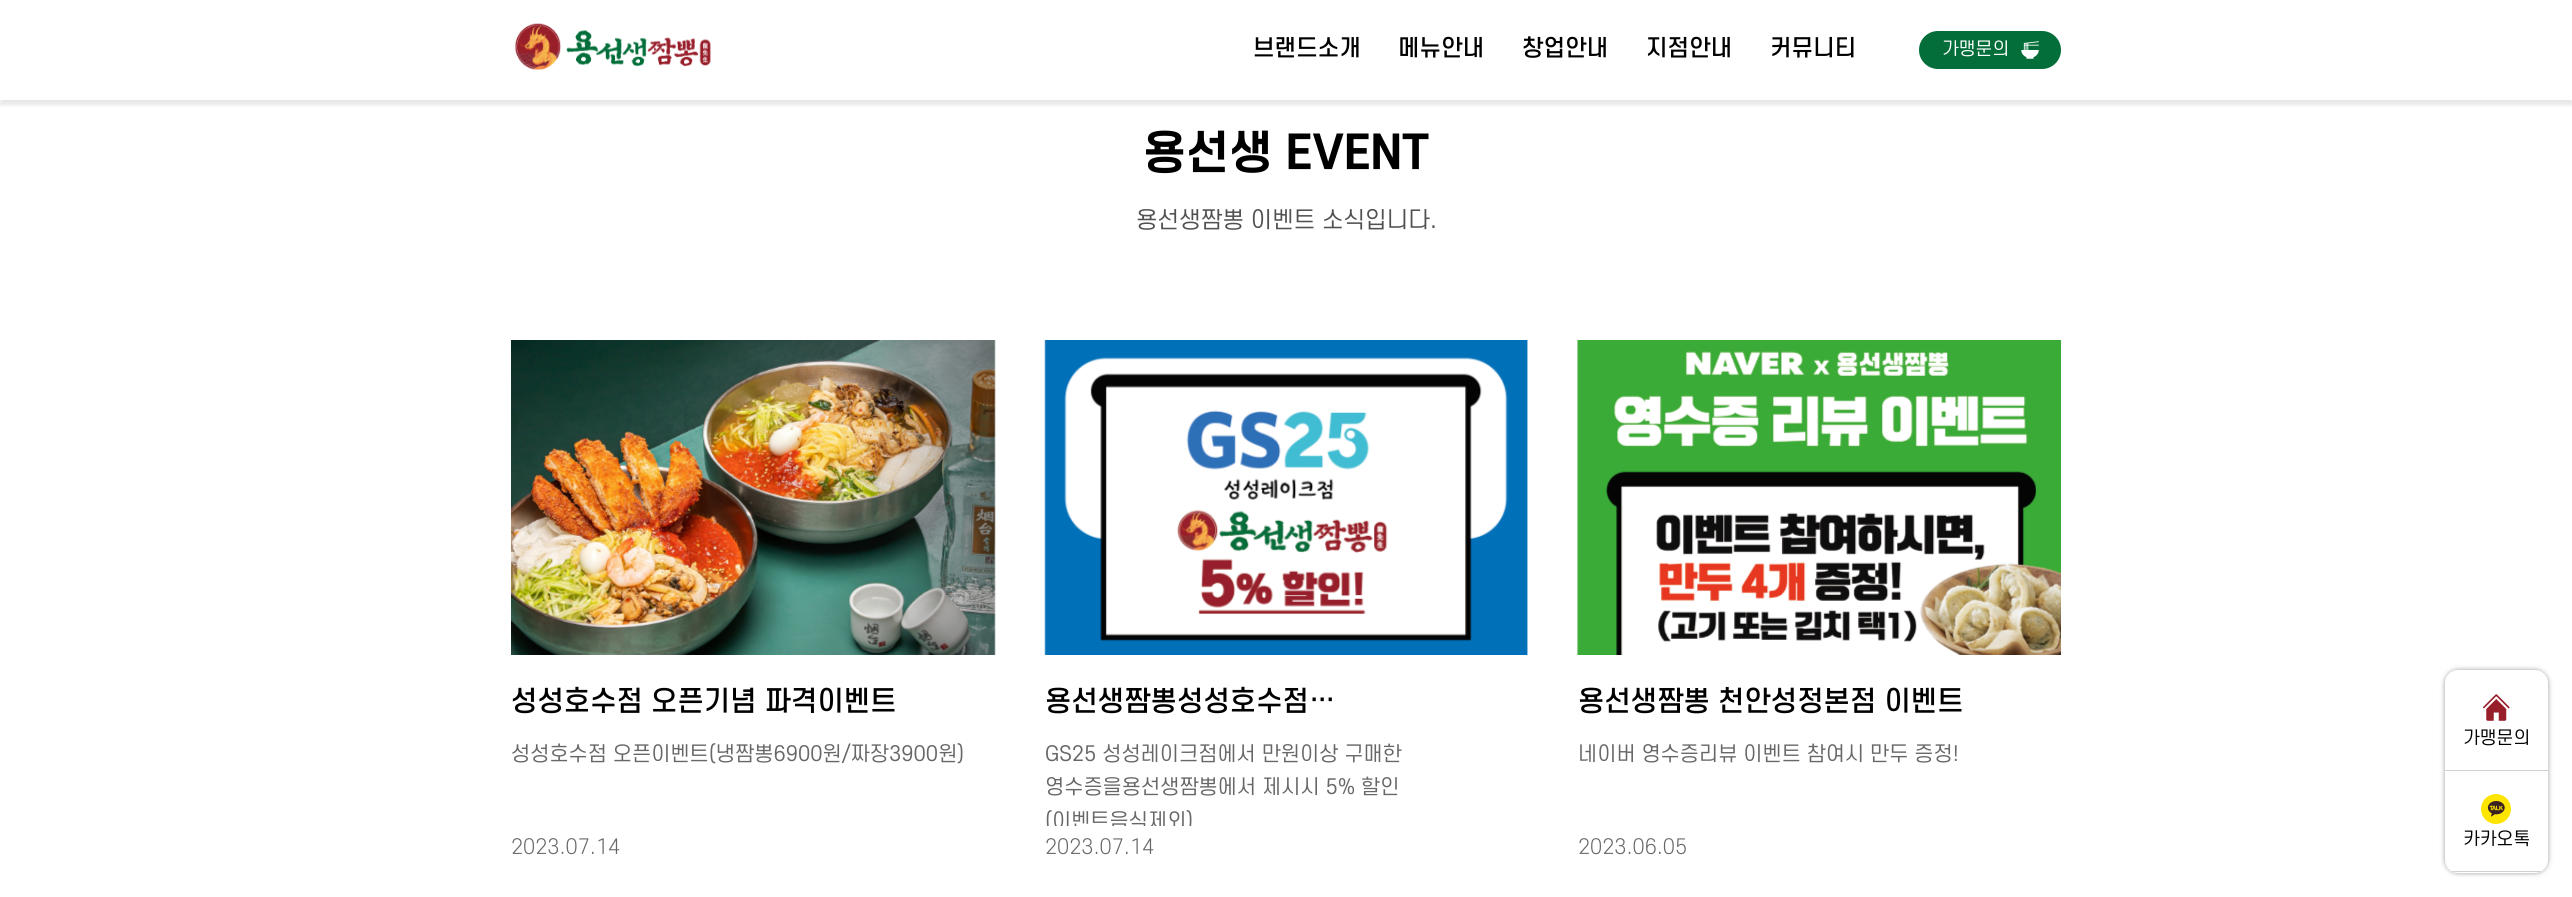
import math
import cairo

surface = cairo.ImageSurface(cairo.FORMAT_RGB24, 2572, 897)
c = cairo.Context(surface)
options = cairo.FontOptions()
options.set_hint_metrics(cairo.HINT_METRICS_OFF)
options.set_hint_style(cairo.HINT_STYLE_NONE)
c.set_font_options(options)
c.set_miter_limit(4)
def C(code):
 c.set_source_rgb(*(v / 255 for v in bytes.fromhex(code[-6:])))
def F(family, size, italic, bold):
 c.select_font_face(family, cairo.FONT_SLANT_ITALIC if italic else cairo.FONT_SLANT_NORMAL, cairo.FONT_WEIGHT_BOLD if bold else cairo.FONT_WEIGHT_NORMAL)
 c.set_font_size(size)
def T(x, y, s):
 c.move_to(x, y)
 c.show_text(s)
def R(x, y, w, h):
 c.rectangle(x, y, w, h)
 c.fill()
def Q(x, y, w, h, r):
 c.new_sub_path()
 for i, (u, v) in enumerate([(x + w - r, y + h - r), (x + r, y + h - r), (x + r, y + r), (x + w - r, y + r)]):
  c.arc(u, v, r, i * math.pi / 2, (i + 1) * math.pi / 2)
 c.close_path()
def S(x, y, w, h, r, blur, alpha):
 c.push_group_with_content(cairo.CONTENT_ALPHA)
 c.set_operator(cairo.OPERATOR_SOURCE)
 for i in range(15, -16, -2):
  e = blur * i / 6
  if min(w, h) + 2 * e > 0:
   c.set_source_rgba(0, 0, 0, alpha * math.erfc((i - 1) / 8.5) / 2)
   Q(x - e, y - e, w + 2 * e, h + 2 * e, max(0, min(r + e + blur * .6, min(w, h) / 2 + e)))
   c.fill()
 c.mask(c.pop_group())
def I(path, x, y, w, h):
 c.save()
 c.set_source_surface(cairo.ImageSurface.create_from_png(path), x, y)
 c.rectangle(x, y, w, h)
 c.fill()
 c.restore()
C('ffffff')
c.paint()
c.save()
c.rectangle(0,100,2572,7)
c.clip()
C('000000')
S(0,5,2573,100,0,2.5,.1)
c.restore()
I('1.png',515,23,196,47)
F('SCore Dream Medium',22.5,0,0)
C('000000')
T(1253,56,'브랜드소개')
T(1398,56,'메뉴안내')
T(1522,56,'창업안내')
T(1646,56,'지점안내')
T(1770,56,'커뮤니티')
C('036e39')
Q(1919,31,142,38,19)
c.fill()
F('SCore Dream',17.5,0,0)
C('ffffff')
T(1942,55,'가맹문의')
I('2.png',2021,41,18,18)
F('SCore Dream',45,0,1)
C('000000')
T(1143,169,'용선생 EVENT')
F('SCore Dream',22.5,0,0)
C('515151')
T(1136,228,'용선생짬뽕 이벤트 소식입니다.')
I('3.png',511,340,485,315)
F('SCore Dream Medium',27.5,0,0)
C('000000')
T(511,711,'성성호수점 오픈기념 파격이벤트')
F('SCore Dream',20,0,0)
C('676767')
T(511,761,'성성호수점 오픈이벤트(냉짬뽕6900원/짜장3900원)')
F('SCore Dream Light',20,0,0)
T(511,854,'2023.07.14')
I('4.png',1044,340,484,315)
F('SCore Dream Medium',27.5,0,0)
C('000000')
T(1045,711,'용선생짬뽕성성호수점…')
F('SCore Dream',20,0,0)
C('676767')
T(1045,761,'GS25 성성레이크점에서 만원이상 구매한')
T(1045,794,'영수증을용선생짬뽕에서 제시시 5% 할인')
c.save()
c.rectangle(1045,739,483,87)
c.clip()
T(1045,828,'(이벤트음식제외)')
c.restore()
F('SCore Dream Light',20,0,0)
T(1045,854,'2023.07.14')
I('5.png',1577,340,484,315)
F('SCore Dream Medium',27.5,0,0)
C('000000')
T(1578,711,'용선생짬뽕 천안성정본점 이벤트')
F('SCore Dream',20,0,0)
C('676767')
T(1578,761,'네이버 영수증리뷰 이벤트 참여시 만두 증정!')
F('SCore Dream Light',20,0,0)
T(1578,854,'2023.06.05')
C('000000')
S(2445,670,103,203,13,2.5,.4)
C('ffffff')
Q(2445,670,103,203,13)
c.fill()
C('d1d1d1')
R(2445,770,103,1)
I('6.png',2483,694,27,27)
F('SCore Dream',17.5,0,0)
C('000000')
T(2463,744,'가맹문의')
c.save()
Q(2445,670,103,203,13)
c.clip()
C('d1d1d1')
R(2445,871,103,1)
c.restore()
I('7.png',2481,794,30,30)
T(2463,845,'카카오톡')
surface.write_to_png('o.png')
